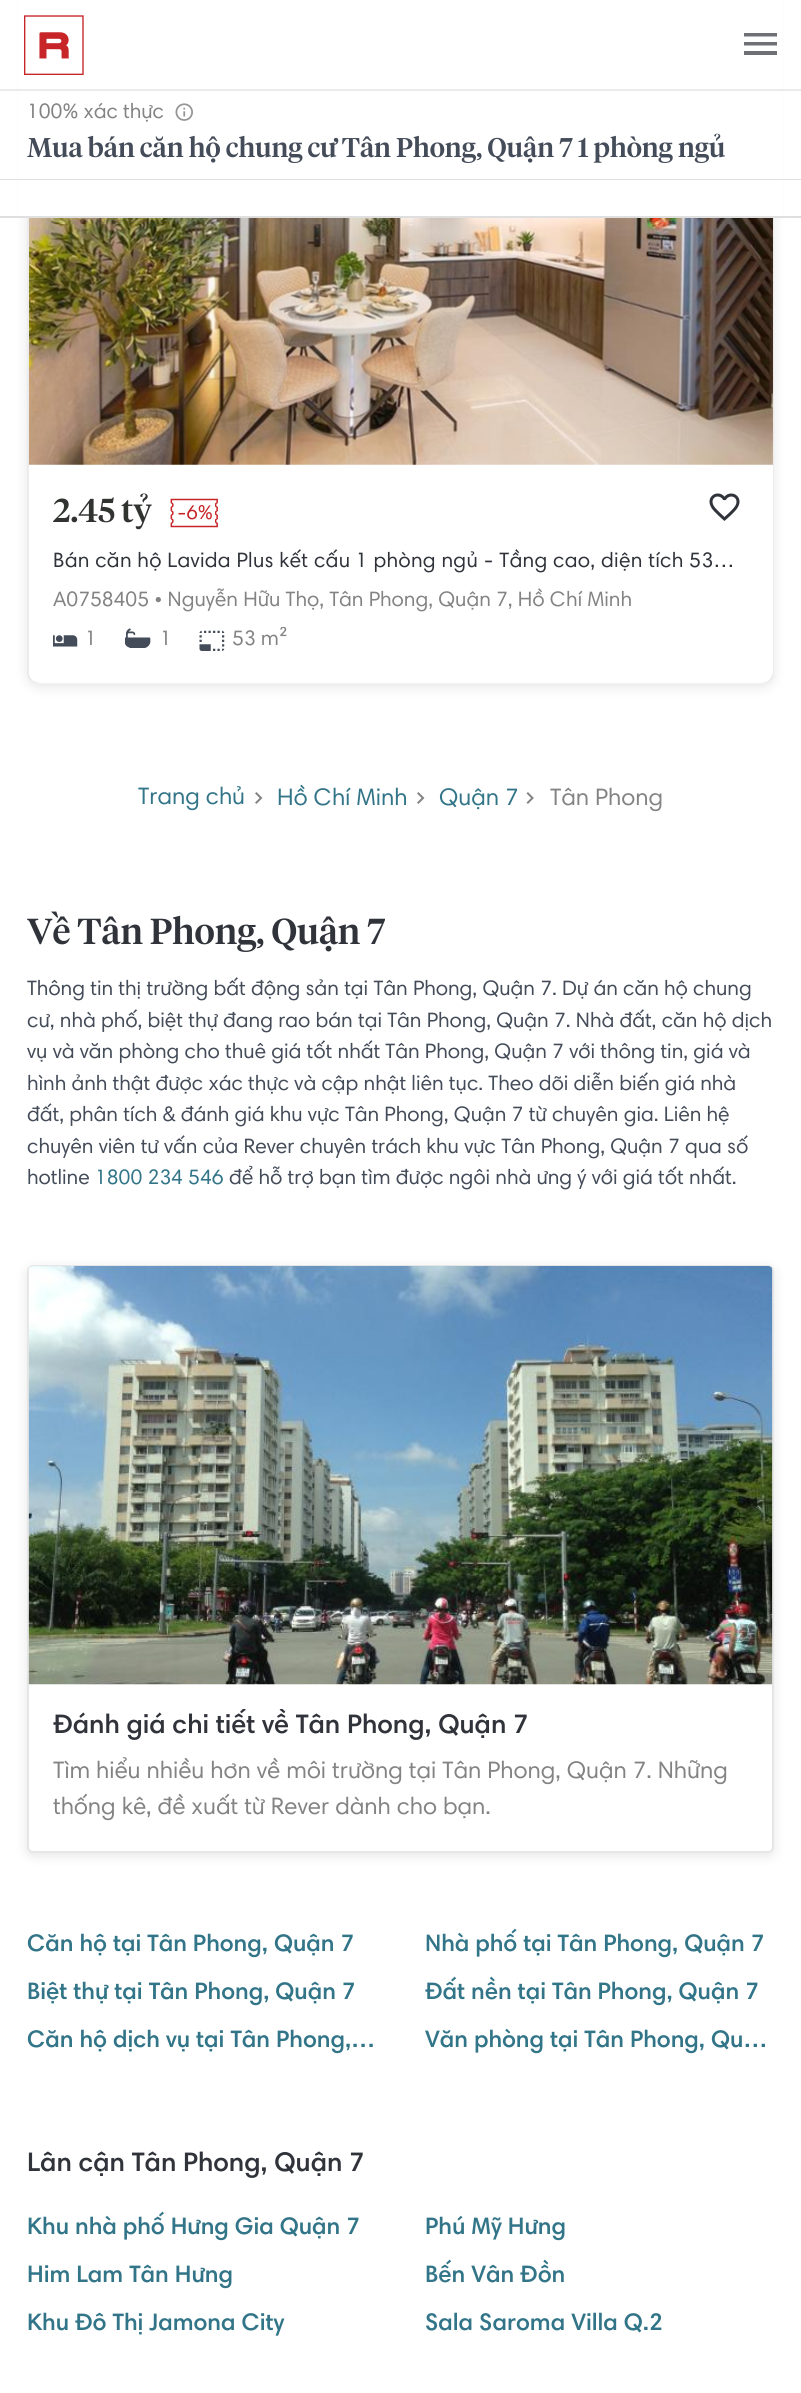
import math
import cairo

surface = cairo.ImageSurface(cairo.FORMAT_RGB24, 801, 2393)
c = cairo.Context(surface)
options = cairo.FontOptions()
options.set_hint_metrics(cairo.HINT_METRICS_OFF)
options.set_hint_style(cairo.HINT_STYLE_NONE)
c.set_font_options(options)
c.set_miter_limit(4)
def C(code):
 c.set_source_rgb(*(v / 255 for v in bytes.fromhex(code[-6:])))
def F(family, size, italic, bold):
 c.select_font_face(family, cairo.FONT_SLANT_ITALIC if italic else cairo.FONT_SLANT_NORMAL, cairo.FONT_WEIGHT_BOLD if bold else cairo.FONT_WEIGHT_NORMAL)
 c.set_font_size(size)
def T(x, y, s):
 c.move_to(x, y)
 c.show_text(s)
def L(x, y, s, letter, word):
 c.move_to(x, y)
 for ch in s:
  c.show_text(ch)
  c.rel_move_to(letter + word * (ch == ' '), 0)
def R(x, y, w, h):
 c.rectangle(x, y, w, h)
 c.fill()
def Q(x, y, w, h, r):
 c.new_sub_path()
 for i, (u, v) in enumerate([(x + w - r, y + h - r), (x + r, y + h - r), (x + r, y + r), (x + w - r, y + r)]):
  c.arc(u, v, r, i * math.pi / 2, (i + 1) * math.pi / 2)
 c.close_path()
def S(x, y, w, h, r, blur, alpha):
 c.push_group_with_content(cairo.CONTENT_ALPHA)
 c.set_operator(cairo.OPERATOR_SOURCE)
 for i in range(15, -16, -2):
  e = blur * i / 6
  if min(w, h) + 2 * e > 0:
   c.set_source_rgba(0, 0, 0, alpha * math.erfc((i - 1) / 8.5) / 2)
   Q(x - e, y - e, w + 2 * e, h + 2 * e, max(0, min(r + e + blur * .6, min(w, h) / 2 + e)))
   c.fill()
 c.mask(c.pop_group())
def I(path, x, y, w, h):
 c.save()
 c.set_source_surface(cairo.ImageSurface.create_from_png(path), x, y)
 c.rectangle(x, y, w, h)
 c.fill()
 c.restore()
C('ffffff')
c.paint()
c.save()
c.set_fill_rule(cairo.FILL_RULE_EVEN_ODD)
c.new_path()
c.move_to(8,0)
c.line_to(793,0)
c.line_to(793,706)
c.line_to(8,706)
c.close_path()
c.move_to(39,-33)
c.line_to(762,-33)
c.curve_to(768.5,-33,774,-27.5,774,-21)
c.line_to(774,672)
c.curve_to(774,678.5,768.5,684,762,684)
c.line_to(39,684)
c.curve_to(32.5,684,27,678.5,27,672)
c.line_to(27,-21)
c.curve_to(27,-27.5,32.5,-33,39,-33)
c.close_path()
c.clip()
C('000000')
S(27,-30,747,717,12,6,.1)
c.restore()
c.new_path()
c.move_to(770,680)
c.curve_to(768,682,765,683,762,683)
c.line_to(39,683)
c.curve_to(36,683,33,682,31,680)
c.set_source_rgba(0.188,0.2,0.227,0.1)
c.set_line_width(1.5)
c.stroke()
c.new_path()
c.move_to(31,680)
c.curve_to(29,678,28,675,28,672)
c.line_to(28,-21)
c.curve_to(28,-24,29,-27,31,-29)
c.curve_to(33,-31,36,-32,39,-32)
c.line_to(762,-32)
c.curve_to(765,-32,768,-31,770,-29)
c.curve_to(772,-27,773,-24,773,-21)
c.line_to(773,672)
c.curve_to(773,675,772,678,770,680)
c.set_source_rgba(0.514,0.514,0.514,0.2)
c.stroke()
C('ffffff')
R(19,0,763,89)
C('eaebeb')
R(0,89,801,2)
I('1.png',24,15,60,60)
C('6e7075')
c.new_path()
c.move_to(744,55)
c.line_to(744,51)
c.line_to(777,51)
c.line_to(777,55)
c.close_path()
c.move_to(744,45.5)
c.line_to(744,42)
c.line_to(777,42)
c.line_to(777,45.5)
c.close_path()
c.move_to(744,33)
c.line_to(777,33)
c.line_to(777,36.5)
c.line_to(744,36.5)
c.close_path()
c.fill()
C('ffffff')
R(19,91,763,125)
c.set_source_rgba(0.8,0.8,0.8,0.63)
R(0,179,801,1)
F('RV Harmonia',21,0,0)
C('838383')
T(27,118,'100% xác thực')
I('2.png',175,103,18,18)
F('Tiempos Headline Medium',27,0,0)
C('444c59')
T(27,157,'Mua bán căn hộ chung cư Tân Phong, Quận 7 1 phòng ngủ')
C('dfdfdf')
R(0,216,801,2)
I('3.png',29,218,744,247)
C('ffffff')
c.new_path()
c.move_to(29,465)
c.line_to(773,465)
c.line_to(773,671)
c.curve_to(773,677.5,767.5,683,761,683)
c.line_to(41,683)
c.curve_to(34.5,683,29,677.5,29,671)
c.close_path()
c.fill()
F('Tiempos Headline Medium',33,0,0)
C('303330')
T(53,522,'2.45 tỷ')
I('4.png',170,498,48,30)
F('RV Harmonia',20,0,0)
C('c72528')
T(177,519,'-6%')
I('5.png',709,493,31,28)
F('RV Harmonia',21,0,0)
C('30333a')
L(53,567,'Bán căn hộ Lavida Plus kết cấu 1 phòng ngủ - Tầng cao, diện tích 53…',.3,0)
C('838383')
T(53,606,'A0758405 • Nguyễn Hữu Thọ, Tân Phong, Quận 7, Hồ Chí Minh')
I('6.png',53,635,25,12)
T(85,645,'1')
I('7.png',125,628,26,20)
T(160,645,'1')
I('8.png',199,630,26,21)
c.save()
c.rectangle(53,627,696,32)
c.clip()
T(232,645,'53 m²')
c.restore()
F('RV Harmonia',24,0,0)
C('337588')
T(138,804,'Trang chủ')
I('9.png',255,792,8,12)
T(277,805,'Hồ Chí Minh')
I('9.png',417,792,8,12)
T(439,805,'Quận 7')
I('10.png',526,792,8,12)
C('838383')
T(550,805,'Tân Phong')
F('Tiempos Headline Medium',36,0,0)
C('30333a')
T(27,944,'Về Tân Phong, Quận 7')
F('RV Harmonia',21,0,0)
C('444c59')
T(27,995,'Thông tin thị trường bất động sản tại Tân Phong, Quận 7. Dự án căn hộ chung')
T(27,1027,'cư, nhà phố, biệt thự đang rao bán tại Tân Phong, Quận 7. Nhà đất, căn hộ dịch')
T(27,1058,'vụ và văn phòng cho thuê giá tốt nhất Tân Phong, Quận 7 với thông tin, giá và')
T(27,1090,'hình ảnh thật được xác thực và cập nhật liên tục. Theo dõi diễn biến giá nhà')
T(27,1121,'đất, phân tích & đánh giá khu vực Tân Phong, Quận 7 từ chuyên gia. Liên hệ')
T(27,1153,'chuyên viên tư vấn của Rever chuyên trách khu vực Tân Phong, Quận 7 qua số')
T(27,1184,'hotline')
C('337588')
T(95,1184,'1800 234 546')
C('444c59')
T(229,1184,'để hỗ trợ bạn tìm được ngôi nhà ưng ý với giá tốt nhất.')
C('000000')
S(27,1268,747,588,6,6,.1)
C('ffffff')
Q(28,1266,745,586,5)
c.fill_preserve()
C('e6e6e6')
c.set_line_width(2)
c.stroke()
I('11.png',28,1266,745,419)
c.save()
c.rectangle(53,1709,696,40)
c.clip()
F('RV Harmonia SemiBold',27,0,0)
C('30333a')
T(53,1733,'Đánh giá chi tiết về Tân Phong, Quận 7')
c.restore()
c.save()
c.rectangle(53,1755,696,72)
c.clip()
F('RV Harmonia',24,0,0)
C('838383')
T(53,1778,'Tìm hiểu nhiều hơn về môi trường tại Tân Phong, Quận 7. Những')
c.restore()
F('RV Harmonia',24,0,0)
C('838383')
T(53,1814,'thống kê, đề xuất từ Rever dành cho bạn.')
F('RV Harmonia SemiBold',24,0,0)
C('337588')
T(27,1951,'Căn hộ tại Tân Phong, Quận 7')
T(425,1951,'Nhà phố tại Tân Phong, Quận 7')
T(27,1999,'Biệt thự tại Tân Phong, Quận 7')
c.save()
c.rectangle(425,1976,349,36)
c.clip()
T(425,1999,'Đất nền tại Tân Phong, Quận 7')
c.restore()
T(27,2047,'Căn hộ dịch vụ tại Tân Phong,…')
T(425,2047,'Văn phòng tại Tân Phong, Qu…')
F('RV Harmonia SemiBold',27,0,0)
C('30333a')
T(27,2171,'Lân cận Tân Phong, Quận 7')
F('RV Harmonia SemiBold',24,0,0)
C('337588')
T(27,2234,'Khu nhà phố Hưng Gia Quận 7')
T(425,2234,'Phú Mỹ Hưng')
T(27,2282,'Him Lam Tân Hưng')
T(425,2282,'Bến Vân Đồn')
T(27,2330,'Khu Đô Thị Jamona City')
T(425,2330,'Sala Saroma Villa Q.2')
surface.write_to_png('o.png')
